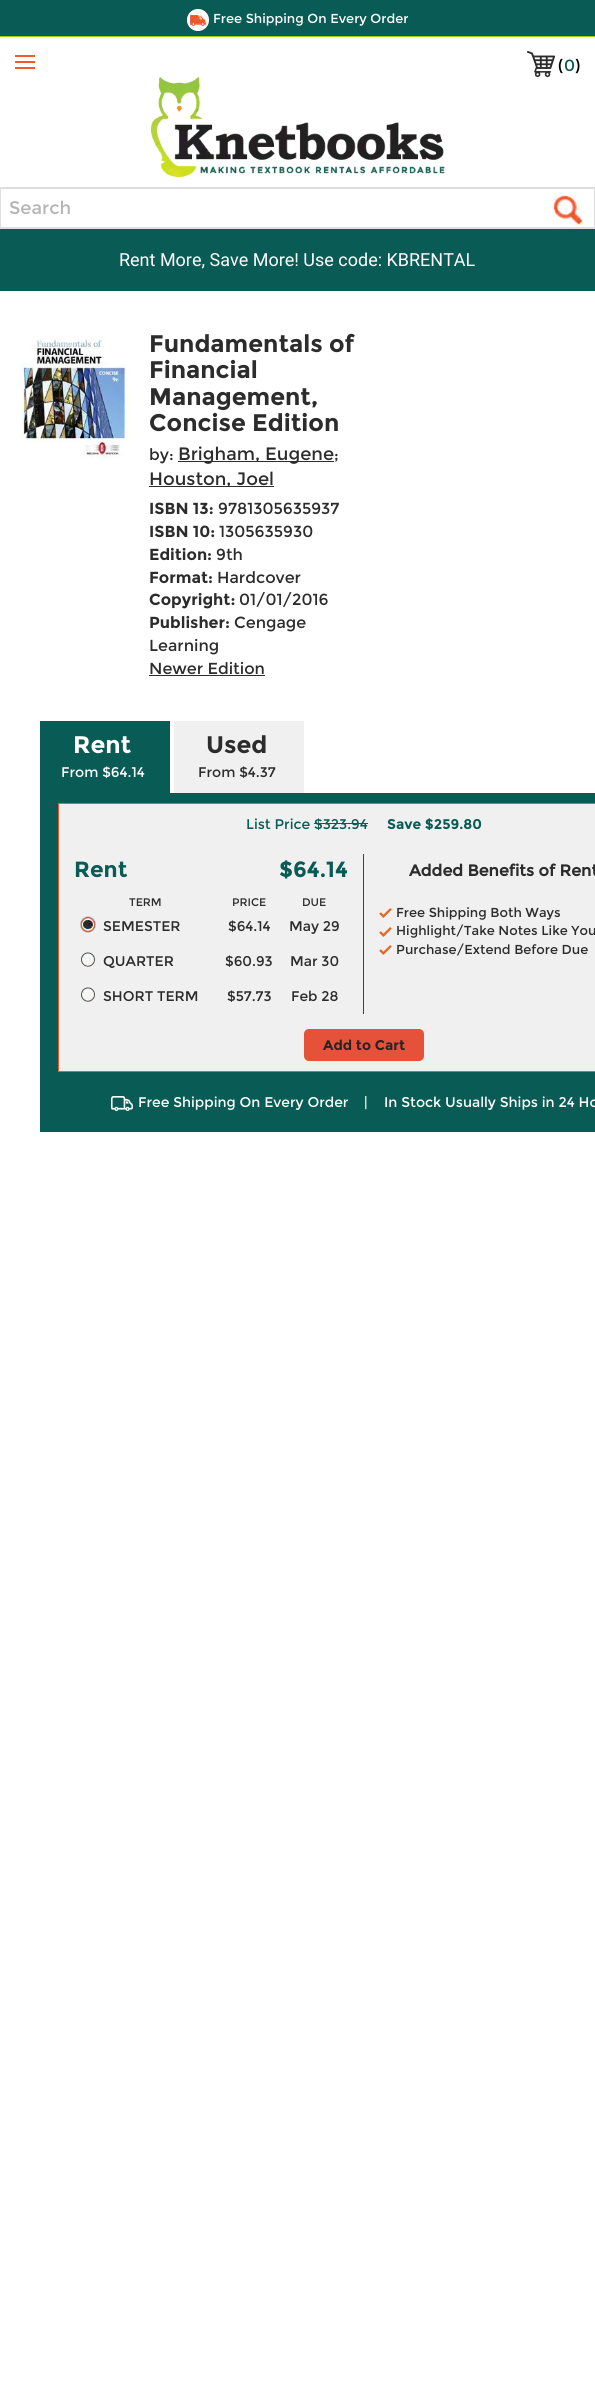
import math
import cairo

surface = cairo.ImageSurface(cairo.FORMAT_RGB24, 595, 2392)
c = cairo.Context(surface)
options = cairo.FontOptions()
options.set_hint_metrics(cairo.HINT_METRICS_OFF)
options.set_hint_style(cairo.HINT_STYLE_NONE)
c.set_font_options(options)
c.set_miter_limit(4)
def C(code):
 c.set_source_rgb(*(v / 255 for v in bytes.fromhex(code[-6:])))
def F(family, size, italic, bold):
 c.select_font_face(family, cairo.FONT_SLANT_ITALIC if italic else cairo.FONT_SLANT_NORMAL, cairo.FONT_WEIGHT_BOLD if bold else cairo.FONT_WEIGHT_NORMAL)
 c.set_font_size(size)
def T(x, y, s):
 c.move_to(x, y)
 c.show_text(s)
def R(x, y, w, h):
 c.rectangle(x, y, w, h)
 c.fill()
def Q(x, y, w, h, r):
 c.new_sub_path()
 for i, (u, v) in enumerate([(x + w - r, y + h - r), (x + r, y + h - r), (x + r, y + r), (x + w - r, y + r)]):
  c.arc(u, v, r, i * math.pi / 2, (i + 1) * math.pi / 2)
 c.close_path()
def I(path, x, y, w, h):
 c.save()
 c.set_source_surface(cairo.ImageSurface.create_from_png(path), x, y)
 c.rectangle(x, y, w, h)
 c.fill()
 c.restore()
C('ffffff')
c.paint()
C('095b56')
R(0,0,595,36)
C('97d700')
R(0,36,595,1)
I('1.png',187,9,22,22)
F('Montserrat',13,0,0)
C('ffffff')
T(213,23,'Free Shipping On Every Order')
C('f25a29')
R(15,61,20,2)
R(15,55,20,2)
R(15,67,20,2)
I('2.png',527,51,28,26)
F('Montserrat',16,0,0)
C('000000')
T(558,71,'(')
C('095b56')
T(564,71,'0')
C('000000')
T(575,71,')')
I('3.png',151,77,294,100)
C('dedede')
R(0,187,595,2)
R(594,187,1,42)
R(0,227,595,2)
R(0,187,1,42)
F('Montserrat',18,0,0)
C('b5b5b5')
T(9,214,'Search')
I('4.png',553,195,30,30)
C('095b56')
R(0,229,595,62)
F('Roboto',18,0,0)
C('ffffff')
T(119,266,'Rent More, Save More! Use code: KBRENTAL')
I('5.png',20,338,111,121)
F('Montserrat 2',24,0,1)
C('2c2c2c')
T(149,352,'Fundamentals of')
T(149,378,'Financial')
T(149,405,'Management,')
T(149,431,'Concise Edition')
F('Montserrat',16,0,0)
T(149,460,'by:')
R(178,461,156,1)
F('Montserrat',18,0,0)
T(178,460,'Brigham, Eugene')
F('Montserrat',16,0,0)
T(334,460,';')
R(149,486,125,1)
F('Montserrat',18,0,0)
T(149,485,'Houston, Joel')
F('Montserrat 2',16,0,1)
T(149,514,'ISBN 13:')
F('Montserrat',16,0,0)
T(218,514,'9781305635937')
F('Montserrat 2',16,0,1)
T(149,537,'ISBN 10:')
F('Montserrat',16,0,0)
T(219,537,'1305635930')
F('Montserrat 2',16,0,1)
T(149,560,'Edition:')
F('Montserrat',16,0,0)
T(216,560,'9th')
F('Montserrat 2',16,0,1)
T(149,583,'Format:')
F('Montserrat',16,0,0)
T(217,583,'Hardcover')
F('Montserrat 2',16,0,1)
T(149,605,'Copyright:')
F('Montserrat',16,0,0)
T(239,605,'01/01/2016')
F('Montserrat 2',16,0,1)
T(149,628,'Publisher:')
F('Montserrat',16,0,0)
T(234,628,'Cengage')
T(149,651,'Learning')
T(149,674,'Newer Edition')
R(149,675,116,1)
C('095b56')
R(40,721,130,72)
F('Montserrat 2',24,0,1)
C('ffffff')
T(73,753,'Rent')
F('Montserrat',14,0,0)
T(61,777,'From $64.14')
C('f0f0f0')
R(174,721,130,72)
F('Montserrat 2',24,0,1)
C('2c2c2c')
T(206,753,'Used')
F('Montserrat',14,0,0)
T(198,777,'From $4.37')
C('095b56')
R(40,793,555,339)
C('f0f0f0')
c.rectangle(58.5,803.5,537,268)
c.fill_preserve()
C('f15a29')
c.set_line_width(1)
c.stroke()
C('095b56')
T(246,829,'List Price $323.94')
R(314,823,54,1)
F('Montserrat 2',14,0,1)
T(387,829,'Save $259.80')
R(363,854,1,160)
F('Montserrat 2',22,0,1)
T(74,877,'Rent')
T(279,877,'$64.14')
F('Montserrat',11,0,0)
C('2c2c2c')
T(129,906,'TERM')
T(232,906,'PRICE')
T(302,906,'DUE')
I('6.png',80,916,16,17)
F('Montserrat',14,0,0)
T(103,931,'SEMESTER')
T(228,931,'$64.14')
T(289,931,'May 29')
I('7.png',81,952,14,15)
T(103,966,'QUARTER')
T(225,966,'$60.93')
T(290,966,'Mar 30')
I('7.png',81,987,14,15)
T(103,1001,'SHORT TERM')
T(227,1001,'$57.73')
T(291,1001,'Feb 28')
F('Montserrat',16,0,1)
T(409,876,'Added Benefits of Rent')
I('8.png',379,908,13,10)
F('Montserrat',13,0,0)
T(396,917,'Free Shipping Both Ways')
I('8.png',379,927,13,10)
T(396,935,'Highlight/Take Notes Like You')
I('8.png',379,945,13,10)
T(396,954,'Purchase/Extend Before Due')
C('e65139')
Q(304,1029,120,32,5)
c.fill()
F('Montserrat 2',14,0,1)
C('252525')
T(323,1050,'Add to Cart')
I('9.png',111,1096,22,15)
F('Montserrat',14,0,0)
C('ffffff')
T(138,1107,'Free Shipping On Every Order')
T(364,1107,'|')
T(384,1107,'In Stock Usually Ships in 24 Ho')
surface.write_to_png('o.png')
